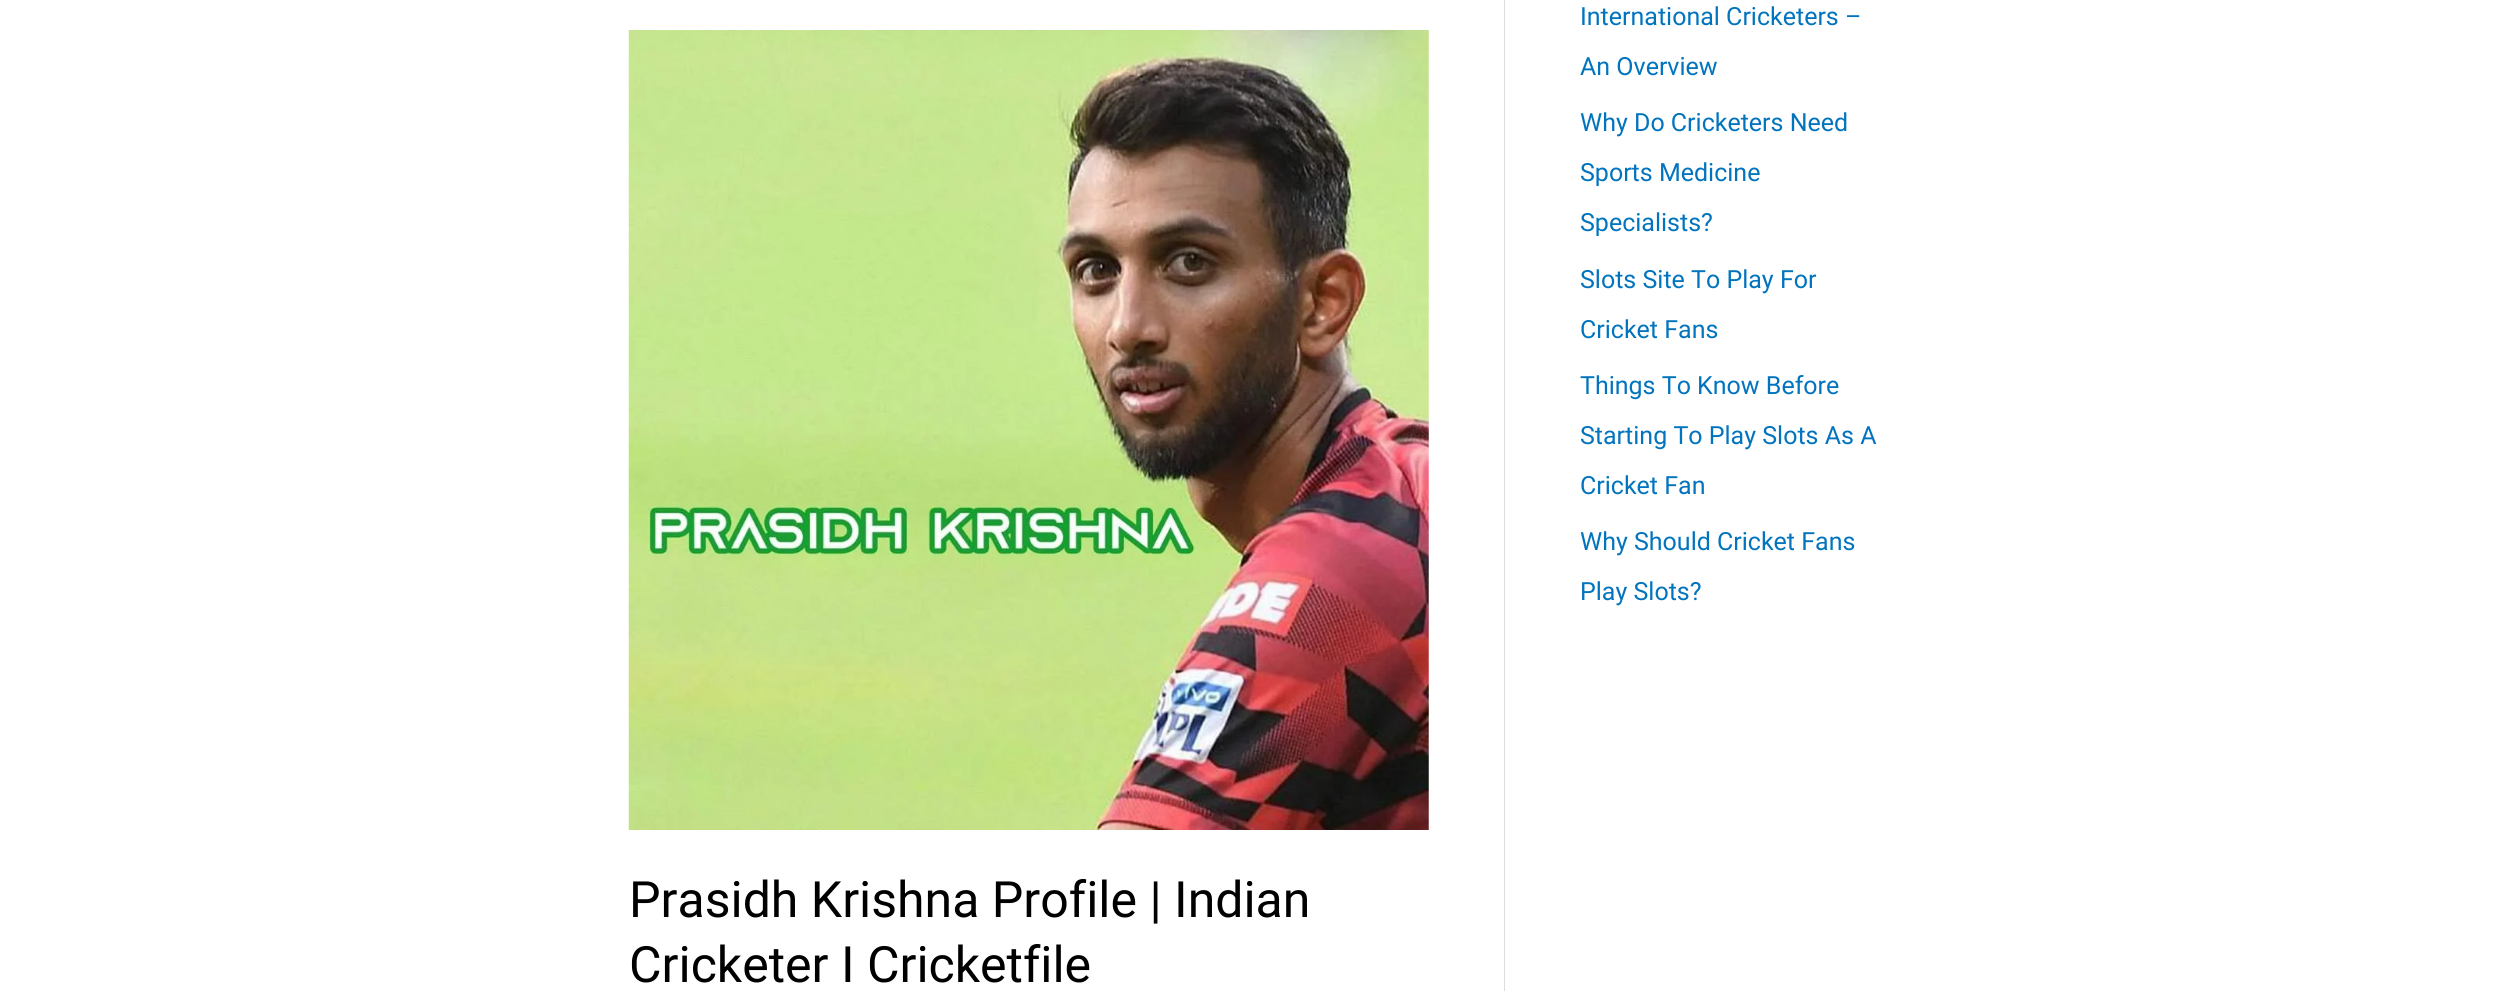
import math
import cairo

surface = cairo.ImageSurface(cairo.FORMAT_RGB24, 2510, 991)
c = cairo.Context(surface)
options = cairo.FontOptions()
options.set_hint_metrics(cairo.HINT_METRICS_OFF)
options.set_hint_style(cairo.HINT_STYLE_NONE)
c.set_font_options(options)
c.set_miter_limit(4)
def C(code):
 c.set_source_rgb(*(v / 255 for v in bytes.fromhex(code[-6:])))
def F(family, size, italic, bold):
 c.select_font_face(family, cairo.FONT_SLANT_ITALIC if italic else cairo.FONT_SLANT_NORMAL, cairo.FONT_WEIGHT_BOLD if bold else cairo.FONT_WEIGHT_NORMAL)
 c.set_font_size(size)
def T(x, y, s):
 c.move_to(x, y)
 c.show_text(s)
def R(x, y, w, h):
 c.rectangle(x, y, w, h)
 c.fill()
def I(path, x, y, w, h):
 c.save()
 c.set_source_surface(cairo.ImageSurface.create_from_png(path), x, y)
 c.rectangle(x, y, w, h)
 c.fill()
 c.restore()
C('ffffff')
c.paint()
F('Roboto',25,0,0)
C('0274be')
T(1580,25,'International Cricketers –')
T(1580,75,'An Overview')
T(1580,131,'Why Do Cricketers Need')
T(1580,181,'Sports Medicine')
T(1580,231,'Specialists?')
T(1580,288,'Slots Site To Play For')
T(1580,338,'Cricket Fans')
T(1580,394,'Things To Know Before')
T(1580,444,'Starting To Play Slots As A')
T(1580,494,'Cricket Fan')
T(1580,550,'Why Should Cricket Fans')
T(1580,600,'Play Slots?')
C('dddddd')
R(1504,0,1,991)
I('1.png',628,30,801,800)
F('Roboto',50,0,0)
C('000000')
T(629,917,'Prasidh Krishna Profile | Indian')
T(629,982,'Cricketer I Cricketfile')
surface.write_to_png('o.png')
